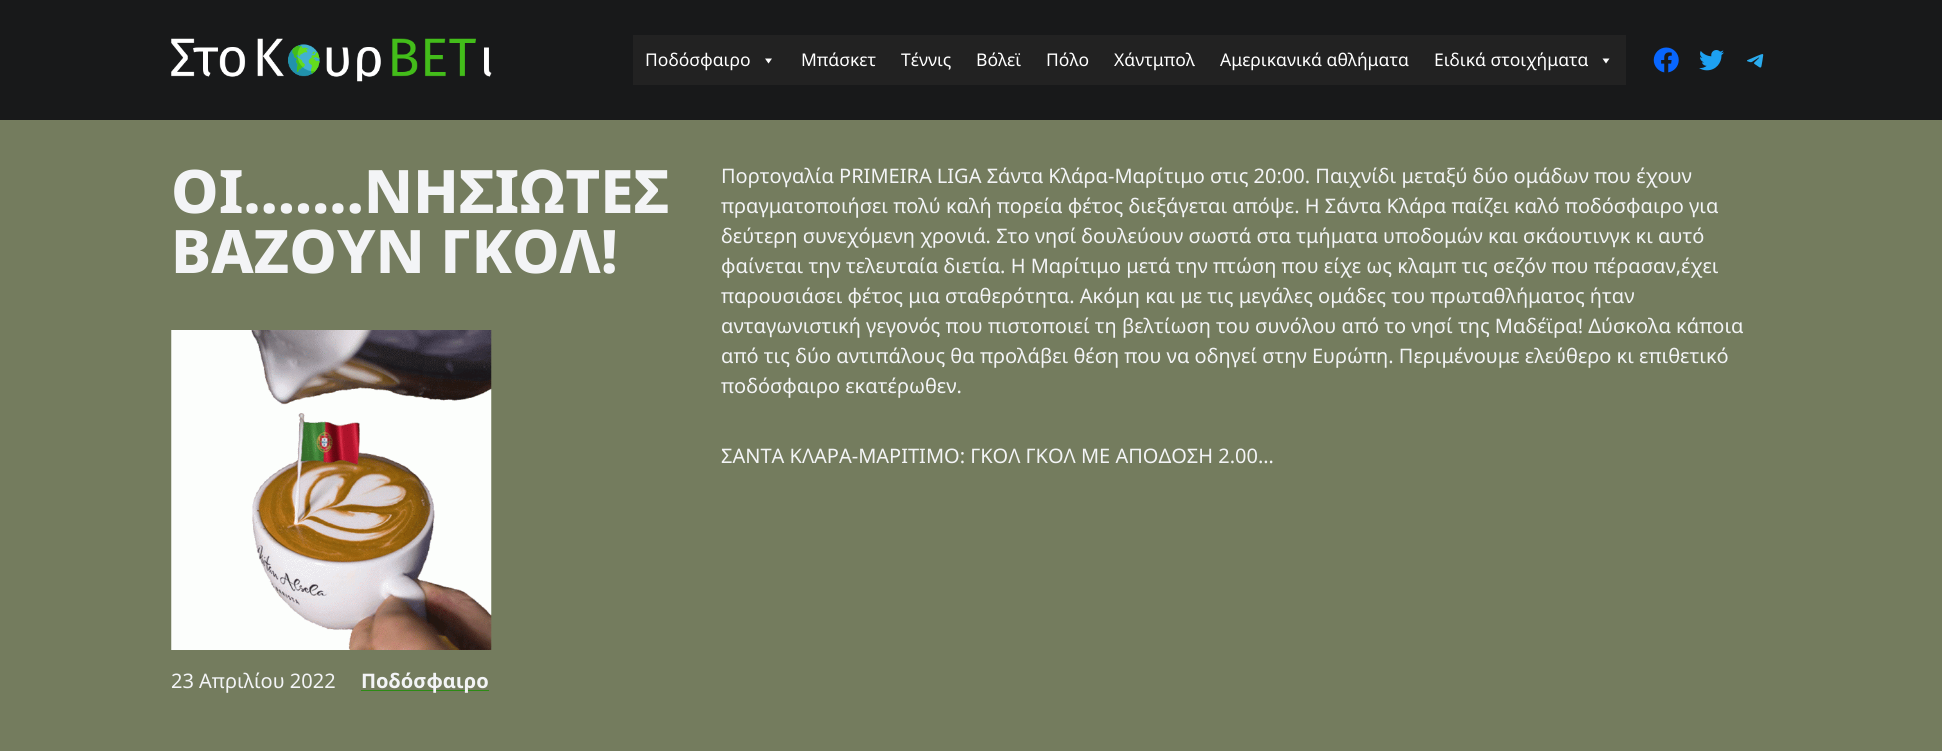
import math
import cairo

surface = cairo.ImageSurface(cairo.FORMAT_RGB24, 1942, 751)
c = cairo.Context(surface)
options = cairo.FontOptions()
options.set_hint_metrics(cairo.HINT_METRICS_OFF)
options.set_hint_style(cairo.HINT_STYLE_NONE)
c.set_font_options(options)
c.set_miter_limit(4)
def C(code):
 c.set_source_rgb(*(v / 255 for v in bytes.fromhex(code[-6:])))
def F(family, size, italic, bold):
 c.select_font_face(family, cairo.FONT_SLANT_ITALIC if italic else cairo.FONT_SLANT_NORMAL, cairo.FONT_WEIGHT_BOLD if bold else cairo.FONT_WEIGHT_NORMAL)
 c.set_font_size(size)
def T(x, y, s):
 c.move_to(x, y)
 c.show_text(s)
def R(x, y, w, h):
 c.rectangle(x, y, w, h)
 c.fill()
def I(path, x, y, w, h):
 c.save()
 c.set_source_surface(cairo.ImageSurface.create_from_png(path), x, y)
 c.rectangle(x, y, w, h)
 c.fill()
 c.restore()
C('747c5e')
c.paint()
C('18191a')
R(0,0,1942,120)
I('1.png',171,38,321,44)
C('222222')
R(633,35,993,50)
F('Noto Sans',17.5,0,0)
C('ffffff')
T(645,66,'Ποδόσφαιρο')
c.new_path()
c.move_to(772,58.5)
c.line_to(768.5,63.5)
c.line_to(765,58.5)
c.close_path()
c.fill()
T(801,66,'Μπάσκετ')
T(901,66,'Τέννις')
T(976,66,'Βόλεϊ')
T(1046,66,'Πόλο')
T(1114,66,'Χάντμπολ')
T(1220,66,'Αμερικανικά αθλήματα')
T(1434,66,'Ειδικά στοιχήματα')
c.new_path()
c.move_to(1609.5,58.5)
c.line_to(1606,63.5)
c.line_to(1602.5,58.5)
c.close_path()
c.fill()
I('2.png',1653,47,26,26)
I('3.png',1699,50,25,21)
I('4.png',1747,54,17,14)
F('Noto Sans ExtraBold',60,0,0)
C('f3f4f6')
T(171,213,'ΟΙ…….ΝΗΣΙΩΤΕΣ')
T(171,273,'ΒΑΖΟΥΝ ΓΚΟΛ!')
I('5.png',171,330,321,320)
F('Noto Sans',20,0,0)
T(171,688,'23 Απριλίου 2022')
C('2c8b14')
R(361,690,128,1)
F('Noto Sans',20,0,1)
C('f3f4f6')
T(361,688,'Ποδόσφαιρο')
F('Noto Sans',20,0,0)
T(721,183,'Πορτογαλία PRIMEIRA LIGA Σάντα Κλάρα-Μαρίτιμο στις 20:00. Παιχνίδι μεταξύ δύο ομάδων που έχουν')
T(721,213,'πραγματοποιήσει πολύ καλή πορεία φέτος διεξάγεται απόψε. Η Σάντα Κλάρα παίζει καλό ποδόσφαιρο για')
T(721,243,'δεύτερη συνεχόμενη χρονιά. Στο νησί δουλεύουν σωστά στα τμήματα υποδομών και σκάουτινγκ κι αυτό')
T(721,273,'φαίνεται την τελευταία διετία. Η Μαρίτιμο μετά την πτώση που είχε ως κλαμπ τις σεζόν που πέρασαν,έχει')
T(721,303,'παρουσιάσει φέτος μια σταθερότητα. Ακόμη και με τις μεγάλες ομάδες του πρωταθλήματος ήταν')
T(721,333,'ανταγωνιστική γεγονός που πιστοποιεί τη βελτίωση του συνόλου από το νησί της Μαδέϊρα! Δύσκολα κάποια')
T(721,363,'από τις δύο αντιπάλους θα προλάβει θέση που να οδηγεί στην Ευρώπη. Περιμένουμε ελεύθερο κι επιθετικό')
T(721,393,'ποδόσφαιρο εκατέρωθεν.')
T(721,463,'ΣΑΝΤΑ ΚΛΑΡΑ-ΜΑΡΙΤΙΜΟ: ΓΚΟΛ ΓΚΟΛ ΜΕ ΑΠΟΔΟΣΗ 2.00…')
surface.write_to_png('o.png')
